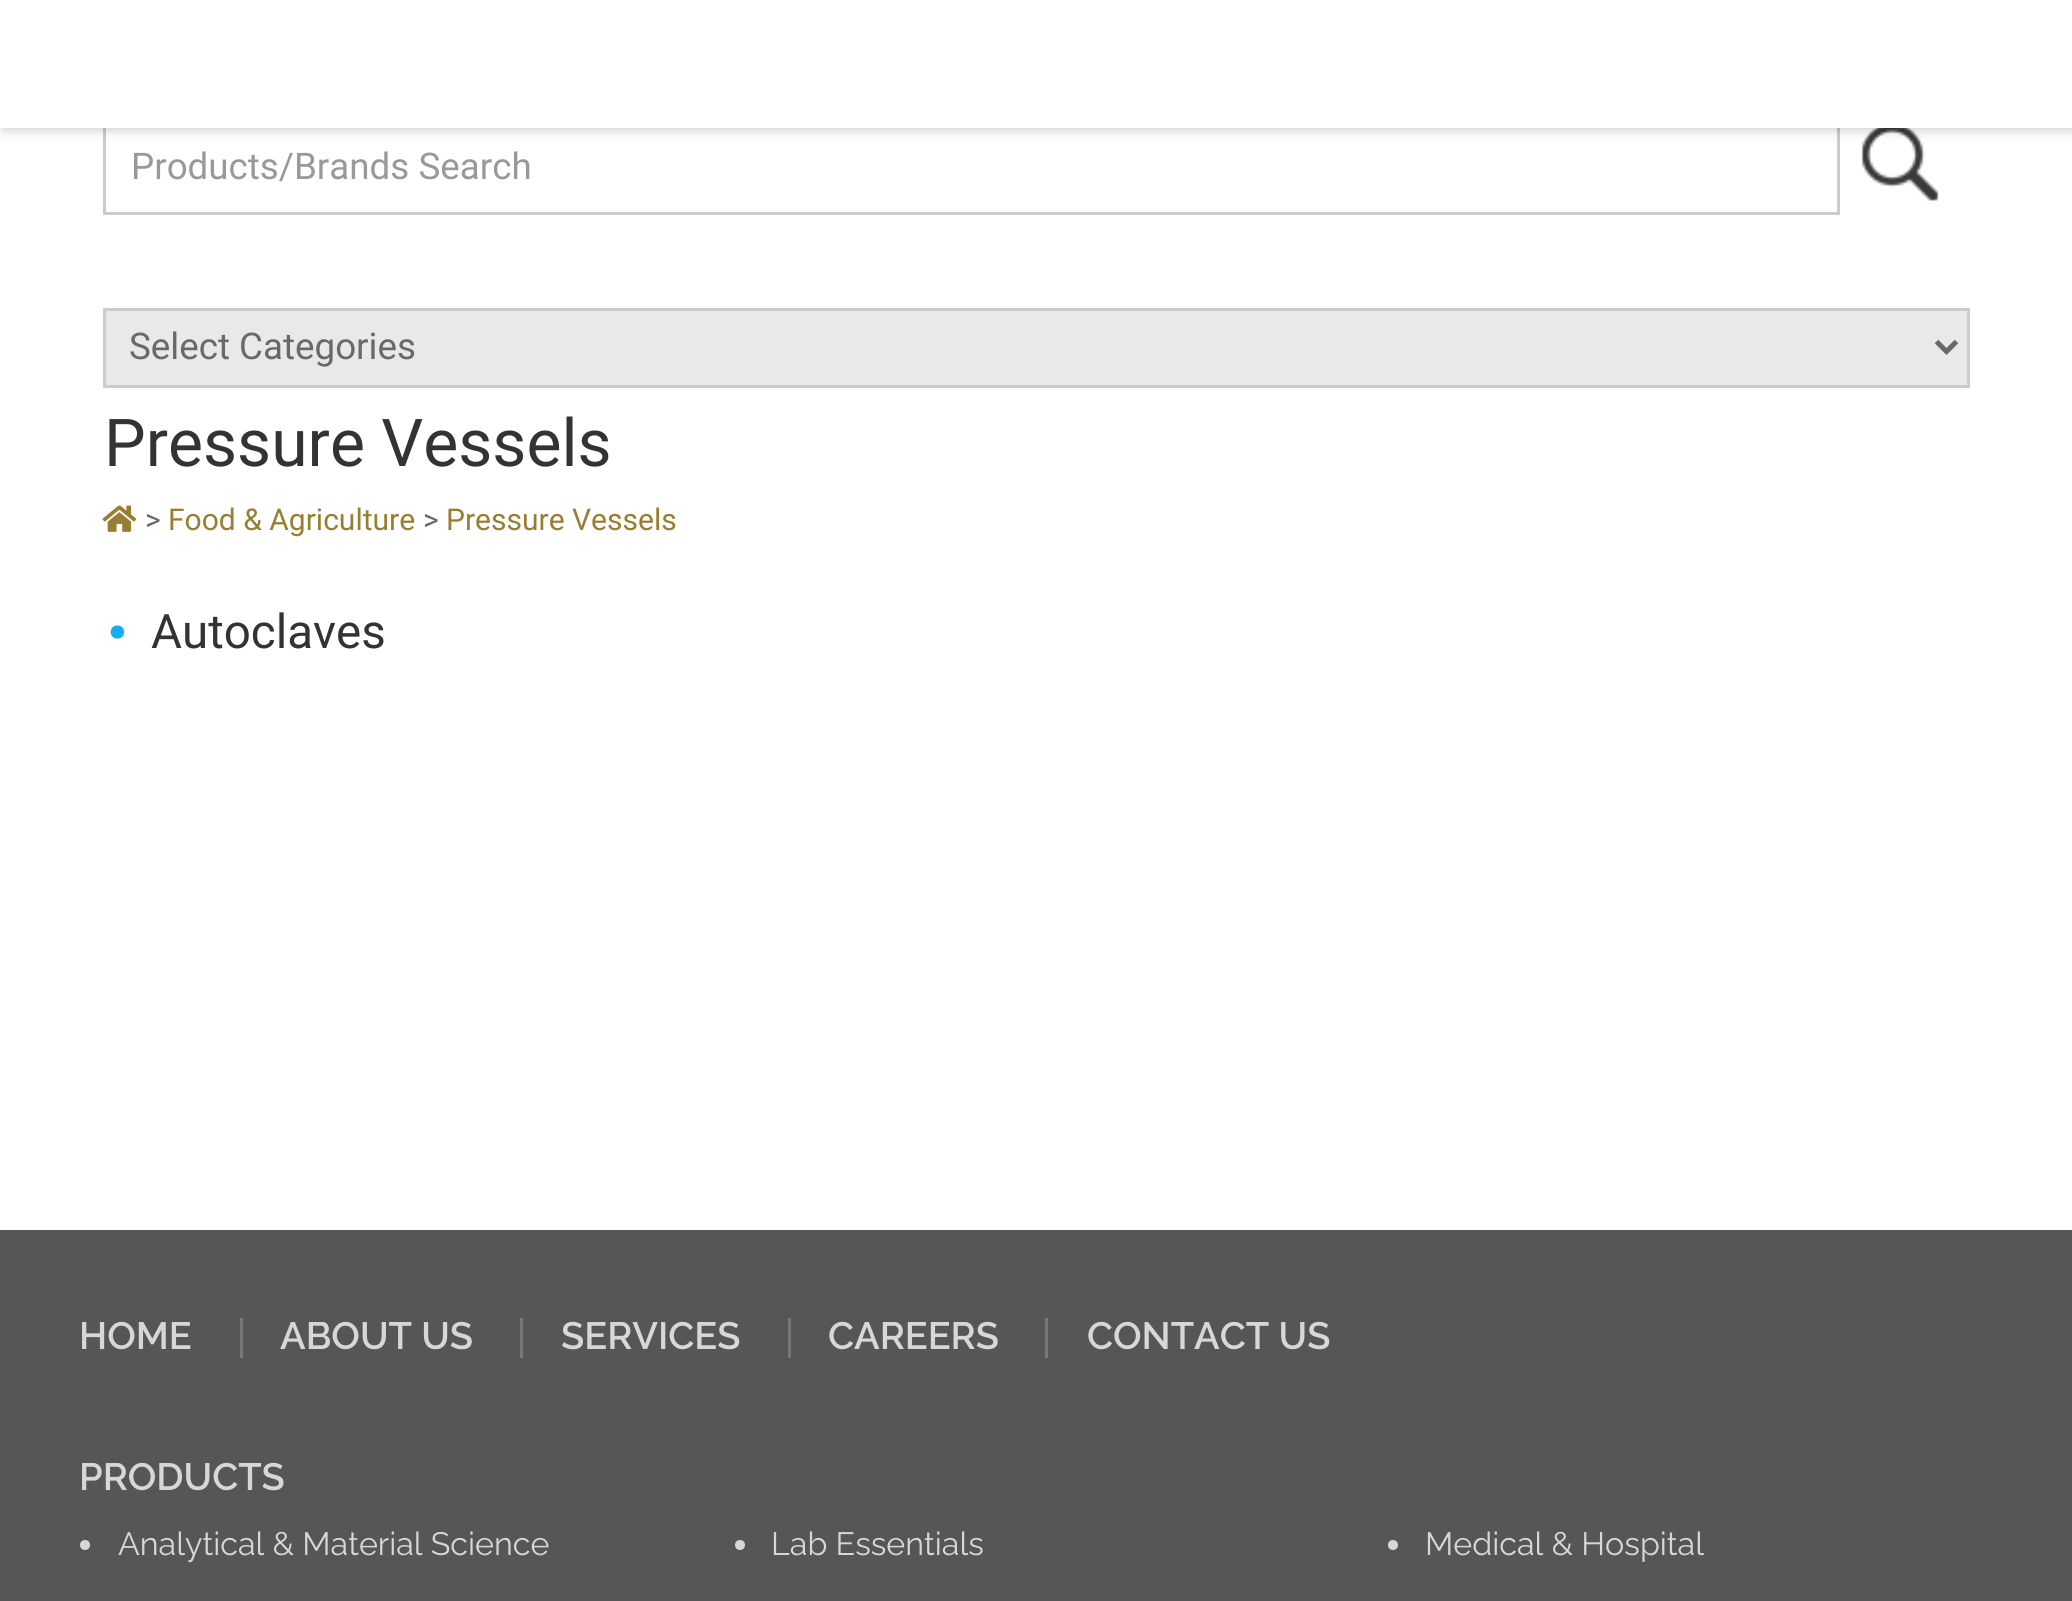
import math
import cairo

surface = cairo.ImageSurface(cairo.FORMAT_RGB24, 2072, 1601)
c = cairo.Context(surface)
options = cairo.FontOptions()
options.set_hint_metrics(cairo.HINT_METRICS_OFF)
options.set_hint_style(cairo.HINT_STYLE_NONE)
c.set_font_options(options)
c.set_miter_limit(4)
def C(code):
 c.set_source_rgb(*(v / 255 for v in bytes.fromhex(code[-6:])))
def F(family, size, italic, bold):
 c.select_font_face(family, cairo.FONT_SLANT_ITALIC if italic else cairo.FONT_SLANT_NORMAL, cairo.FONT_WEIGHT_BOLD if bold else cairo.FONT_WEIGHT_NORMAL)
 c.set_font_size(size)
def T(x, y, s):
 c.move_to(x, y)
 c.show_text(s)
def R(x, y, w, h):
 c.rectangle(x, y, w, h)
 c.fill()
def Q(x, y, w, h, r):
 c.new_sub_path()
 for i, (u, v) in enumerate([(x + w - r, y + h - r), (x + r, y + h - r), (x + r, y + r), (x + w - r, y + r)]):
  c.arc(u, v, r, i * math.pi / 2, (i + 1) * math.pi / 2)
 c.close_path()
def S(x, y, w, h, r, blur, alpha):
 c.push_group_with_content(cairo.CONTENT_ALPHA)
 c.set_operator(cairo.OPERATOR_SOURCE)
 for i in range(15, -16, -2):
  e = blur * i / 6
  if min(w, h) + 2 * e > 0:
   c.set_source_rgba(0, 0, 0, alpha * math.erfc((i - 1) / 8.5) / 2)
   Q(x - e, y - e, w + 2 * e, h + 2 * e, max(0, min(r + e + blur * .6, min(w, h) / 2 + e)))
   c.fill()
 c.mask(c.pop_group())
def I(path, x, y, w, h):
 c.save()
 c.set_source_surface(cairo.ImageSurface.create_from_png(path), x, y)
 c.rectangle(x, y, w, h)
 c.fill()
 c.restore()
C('ffffff')
c.paint()
c.rectangle(104.5,119.5,1734,94)
C('cccccc')
c.set_line_width(3)
c.stroke()
I('1.png',1861,128,78,73)
C('000000')
S(3,3,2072,127,0,6,.2)
C('ffffff')
R(0,0,2072,128)
F('Roboto',36.75,0,0)
C('999999')
T(131,179,'Products/Brands Search')
C('e9e9e9')
c.rectangle(104.5,309.5,1864,77)
c.fill_preserve()
C('cccccc')
c.stroke()
c.new_path()
c.move_to(1936.5,341.5)
c.line_to(1946.5,351.5)
c.line_to(1956.5,341.5)
C('696969')
c.set_line_width(5)
c.stroke()
T(129,359,'Select Categories')
F('Roboto',66,0,0)
C('333333')
T(104,466,'Pressure Vessels')
I('2.png',102,505,35,27)
F('Roboto',30,0,0)
C('696969')
T(145,530,'>')
C('987e31')
T(168,530,'Food & Agriculture')
C('696969')
T(423,530,'>')
C('987e31')
T(446,530,'Pressure Vessels')
F('Roboto',95,0,1)
C('13aff0')
T(104,638,'.')
F('Roboto',47.5,0,0)
C('333333')
T(151,648,'Autoclaves')
C('565656')
R(0,1230,2072,371)
F('Raleway SemiBold',38,0,0)
C('d7d7d7')
T(79,1349,'HOME')
C('777777')
R(240,1318,3,40)
C('d7d7d7')
T(280,1349,'ABOUT US')
C('777777')
R(520,1318,3,40)
C('d7d7d7')
T(561,1349,'SERVICES')
C('777777')
R(788,1318,3,40)
C('d7d7d7')
T(828,1349,'CAREERS')
C('777777')
R(1045,1318,3,40)
C('d7d7d7')
T(1087,1349,'CONTACT US')
T(79,1490,'PRODUCTS')
c.new_path()
c.arc(85,1545,5,0,2 * math.pi)
c.fill()
F('Raleway',32.25,0,0)
T(118,1555,'Analytical & Material Science')
c.new_path()
c.arc(740,1545,5,0,2 * math.pi)
c.fill()
T(771,1555,'Lab Essentials')
c.new_path()
c.arc(1393,1545,5,0,2 * math.pi)
c.fill()
T(1425,1555,'Medical & Hospital')
surface.write_to_png('o.png')
